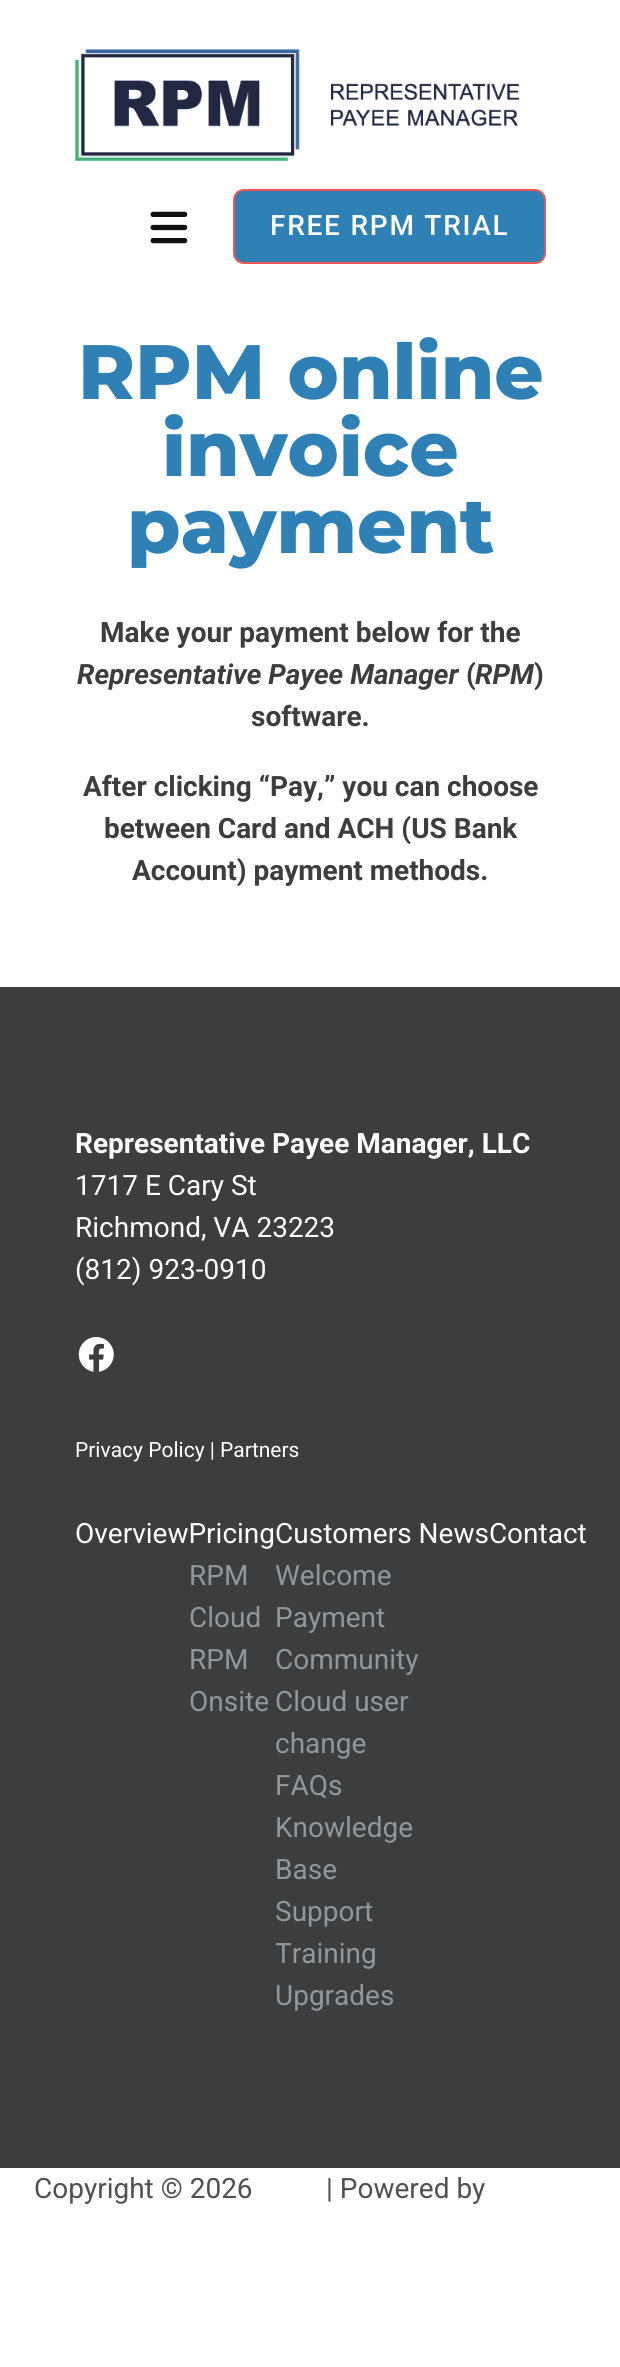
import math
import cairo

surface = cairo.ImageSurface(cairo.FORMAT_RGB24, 620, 2367)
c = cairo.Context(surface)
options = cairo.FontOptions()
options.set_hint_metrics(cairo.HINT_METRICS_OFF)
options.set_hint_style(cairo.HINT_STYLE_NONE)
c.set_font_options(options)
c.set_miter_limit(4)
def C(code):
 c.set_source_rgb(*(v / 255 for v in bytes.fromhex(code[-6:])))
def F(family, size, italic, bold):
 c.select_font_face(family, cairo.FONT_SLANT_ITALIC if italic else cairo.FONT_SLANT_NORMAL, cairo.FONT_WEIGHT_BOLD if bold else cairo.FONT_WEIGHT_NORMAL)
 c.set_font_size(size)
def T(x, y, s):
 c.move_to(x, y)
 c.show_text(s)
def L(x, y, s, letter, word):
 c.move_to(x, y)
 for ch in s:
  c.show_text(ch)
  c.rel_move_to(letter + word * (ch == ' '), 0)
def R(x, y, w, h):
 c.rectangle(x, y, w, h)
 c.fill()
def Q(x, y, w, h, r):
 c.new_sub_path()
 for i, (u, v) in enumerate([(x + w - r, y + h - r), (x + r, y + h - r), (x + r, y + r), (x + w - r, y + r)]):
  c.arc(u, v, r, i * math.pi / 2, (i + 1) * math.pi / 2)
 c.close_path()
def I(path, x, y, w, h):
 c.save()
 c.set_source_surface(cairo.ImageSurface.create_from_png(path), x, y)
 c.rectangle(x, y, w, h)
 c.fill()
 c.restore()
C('ffffff')
c.paint()
I('1.png',75,49,445,112)
I('2.png',150,211,38,33)
C('2f80b5')
Q(234,190,311,73,10)
c.fill_preserve()
C('ef5455')
c.stroke()
F('Roboto Medium',28,0,0)
C('ffffff')
L(270,235,'FREE RPM TRIAL',1.75,0)
F('Montserrat ExtraBold',77,0,0)
C('2f80b5')
T(78,399,'RPM online')
T(162,476,'invoice')
T(127,553,'payment')
F('Roboto',28,0,1)
C('3d3d3d')
T(100,642,'Make your payment below for the')
F('Roboto',28,1,1)
T(77,684,'Representative Payee Manager')
F('Roboto',28,0,1)
T(466,684,'(')
F('Roboto',28,1,1)
T(475,684,'RPM')
F('Roboto',28,0,1)
T(534,684,')')
T(251,726,'software.')
T(83,796,'After clicking “Pay,” you can choose')
T(104,838,'between Card and ACH (US Bank')
T(132,880,'Account) payment methods.')
R(0,987,620,1181)
C('ffffff')
T(75,1153,'Representative Payee Manager, LLC')
F('Roboto',28,0,0)
T(75,1195,'1717 E Cary St')
T(75,1237,'Richmond, VA 23223')
T(75,1279,'(812) 923-0910')
I('3.png',78,1337,36,35)
F('Roboto',21,0,0)
T(75,1457,'Privacy Policy | Partners')
F('Roboto',28,0,0)
T(75,1543,'OverviewPricingCustomers NewsContact')
C('939597')
T(189,1585,'RPM')
T(189,1627,'Cloud')
T(189,1669,'RPM')
T(189,1711,'Onsite')
T(275,1585,'Welcome')
T(275,1627,'Payment')
T(275,1669,'Community')
T(275,1711,'Cloud user')
T(275,1753,'change')
T(275,1795,'FAQs')
T(275,1837,'Knowledge')
T(275,1879,'Base')
T(275,1921,'Support')
T(275,1963,'Training')
T(275,2005,'Upgrades')
C('505050')
T(34,2198,'Copyright © 2026')
T(326,2198,'| Powered by')
surface.write_to_png('o.png')
